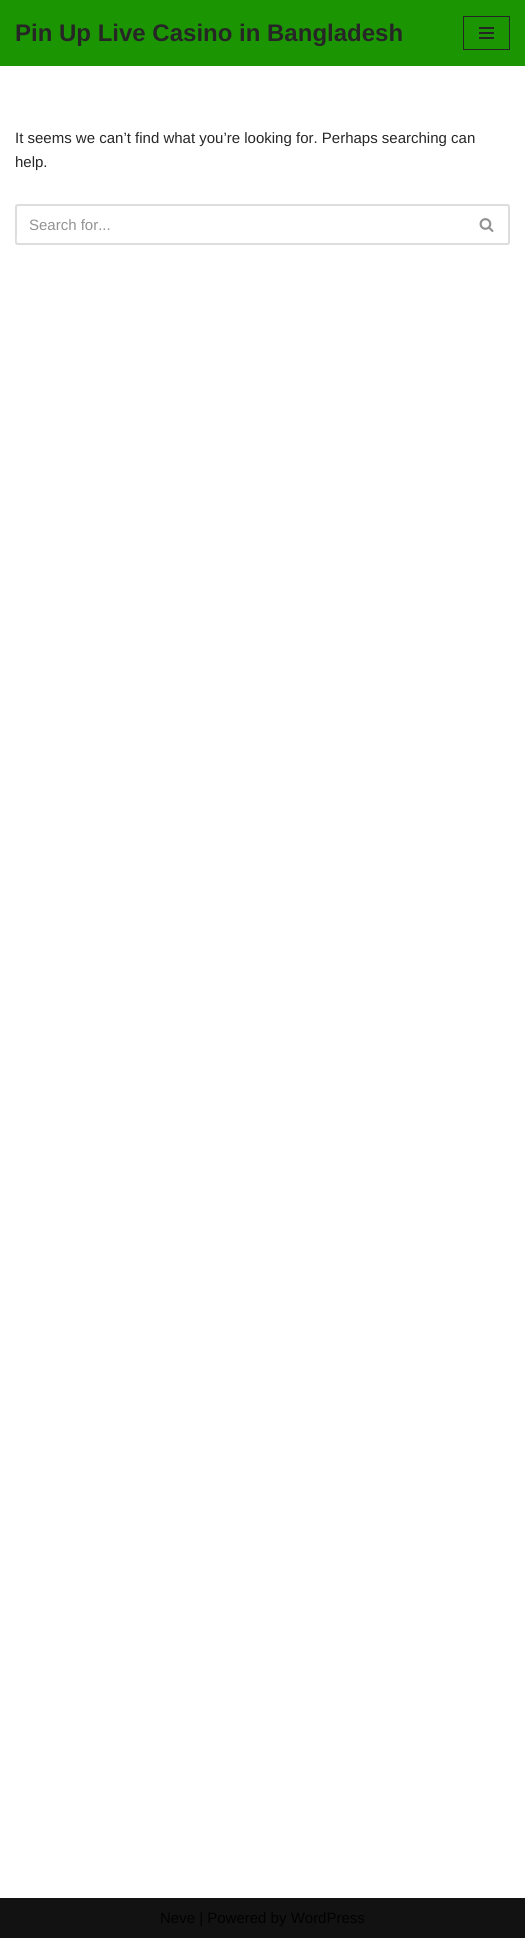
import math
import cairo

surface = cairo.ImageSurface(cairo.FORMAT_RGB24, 525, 1938)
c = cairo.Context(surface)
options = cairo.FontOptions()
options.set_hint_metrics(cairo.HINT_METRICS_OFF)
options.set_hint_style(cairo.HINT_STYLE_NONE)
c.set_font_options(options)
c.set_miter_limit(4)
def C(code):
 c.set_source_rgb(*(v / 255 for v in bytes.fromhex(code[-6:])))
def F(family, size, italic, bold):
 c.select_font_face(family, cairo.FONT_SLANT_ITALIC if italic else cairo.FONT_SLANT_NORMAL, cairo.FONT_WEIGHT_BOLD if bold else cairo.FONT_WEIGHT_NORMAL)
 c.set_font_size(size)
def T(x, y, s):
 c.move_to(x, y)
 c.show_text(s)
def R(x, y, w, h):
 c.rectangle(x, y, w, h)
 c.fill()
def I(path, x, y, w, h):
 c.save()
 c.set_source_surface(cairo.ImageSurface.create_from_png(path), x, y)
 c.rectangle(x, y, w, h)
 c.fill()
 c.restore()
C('ffffff')
c.paint()
C('1b9602')
R(0,0,525,66)
F('Liberation Sans',24,0,1)
C('272626')
T(15,41,'Pin Up Live Casino in Bangladesh')
c.rectangle(463.5,16.5,46,33)
c.set_line_width(1)
c.stroke()
R(479,27,15,2)
R(479,32,15,2)
R(479,37,15,2)
F('Liberation Sans',15,0,0)
T(15,143,'It seems we can’t find what you’re looking for. Perhaps searching can')
T(15,167,'help.')
C('dddddd')
c.set_fill_rule(cairo.FILL_RULE_EVEN_ODD)
c.new_path()
c.move_to(18,204)
c.line_to(465,204)
c.line_to(465,245)
c.line_to(18,245)
c.curve_to(16,245,15,244,15,242)
c.line_to(15,207)
c.curve_to(15,205,16,204,18,204)
c.close_path()
c.move_to(18,206)
c.line_to(465,206)
c.line_to(465,243)
c.line_to(18,243)
c.curve_to(16,243,17,238,17,236)
c.line_to(17,207)
c.close_path()
c.fill()
C('939393')
T(29,230,'Search for...')
C('dddddd')
c.new_path()
c.move_to(465,204)
c.line_to(507,204)
c.curve_to(509,204,510,205,510,207)
c.line_to(510,242)
c.curve_to(510,244,509,245,507,245)
c.line_to(465,245)
c.close_path()
c.move_to(465,206)
c.line_to(507,206)
c.curve_to(508,206,508,206,508,207)
c.line_to(508,242)
c.curve_to(508,243,508,243,507,243)
c.line_to(465,243)
c.close_path()
c.fill()
I('1.png',479,218,15,14)
C('121212')
R(0,1898,525,40)
C('010101')
T(160,1923,'Neve | Powered by WordPress')
surface.write_to_png('o.png')
